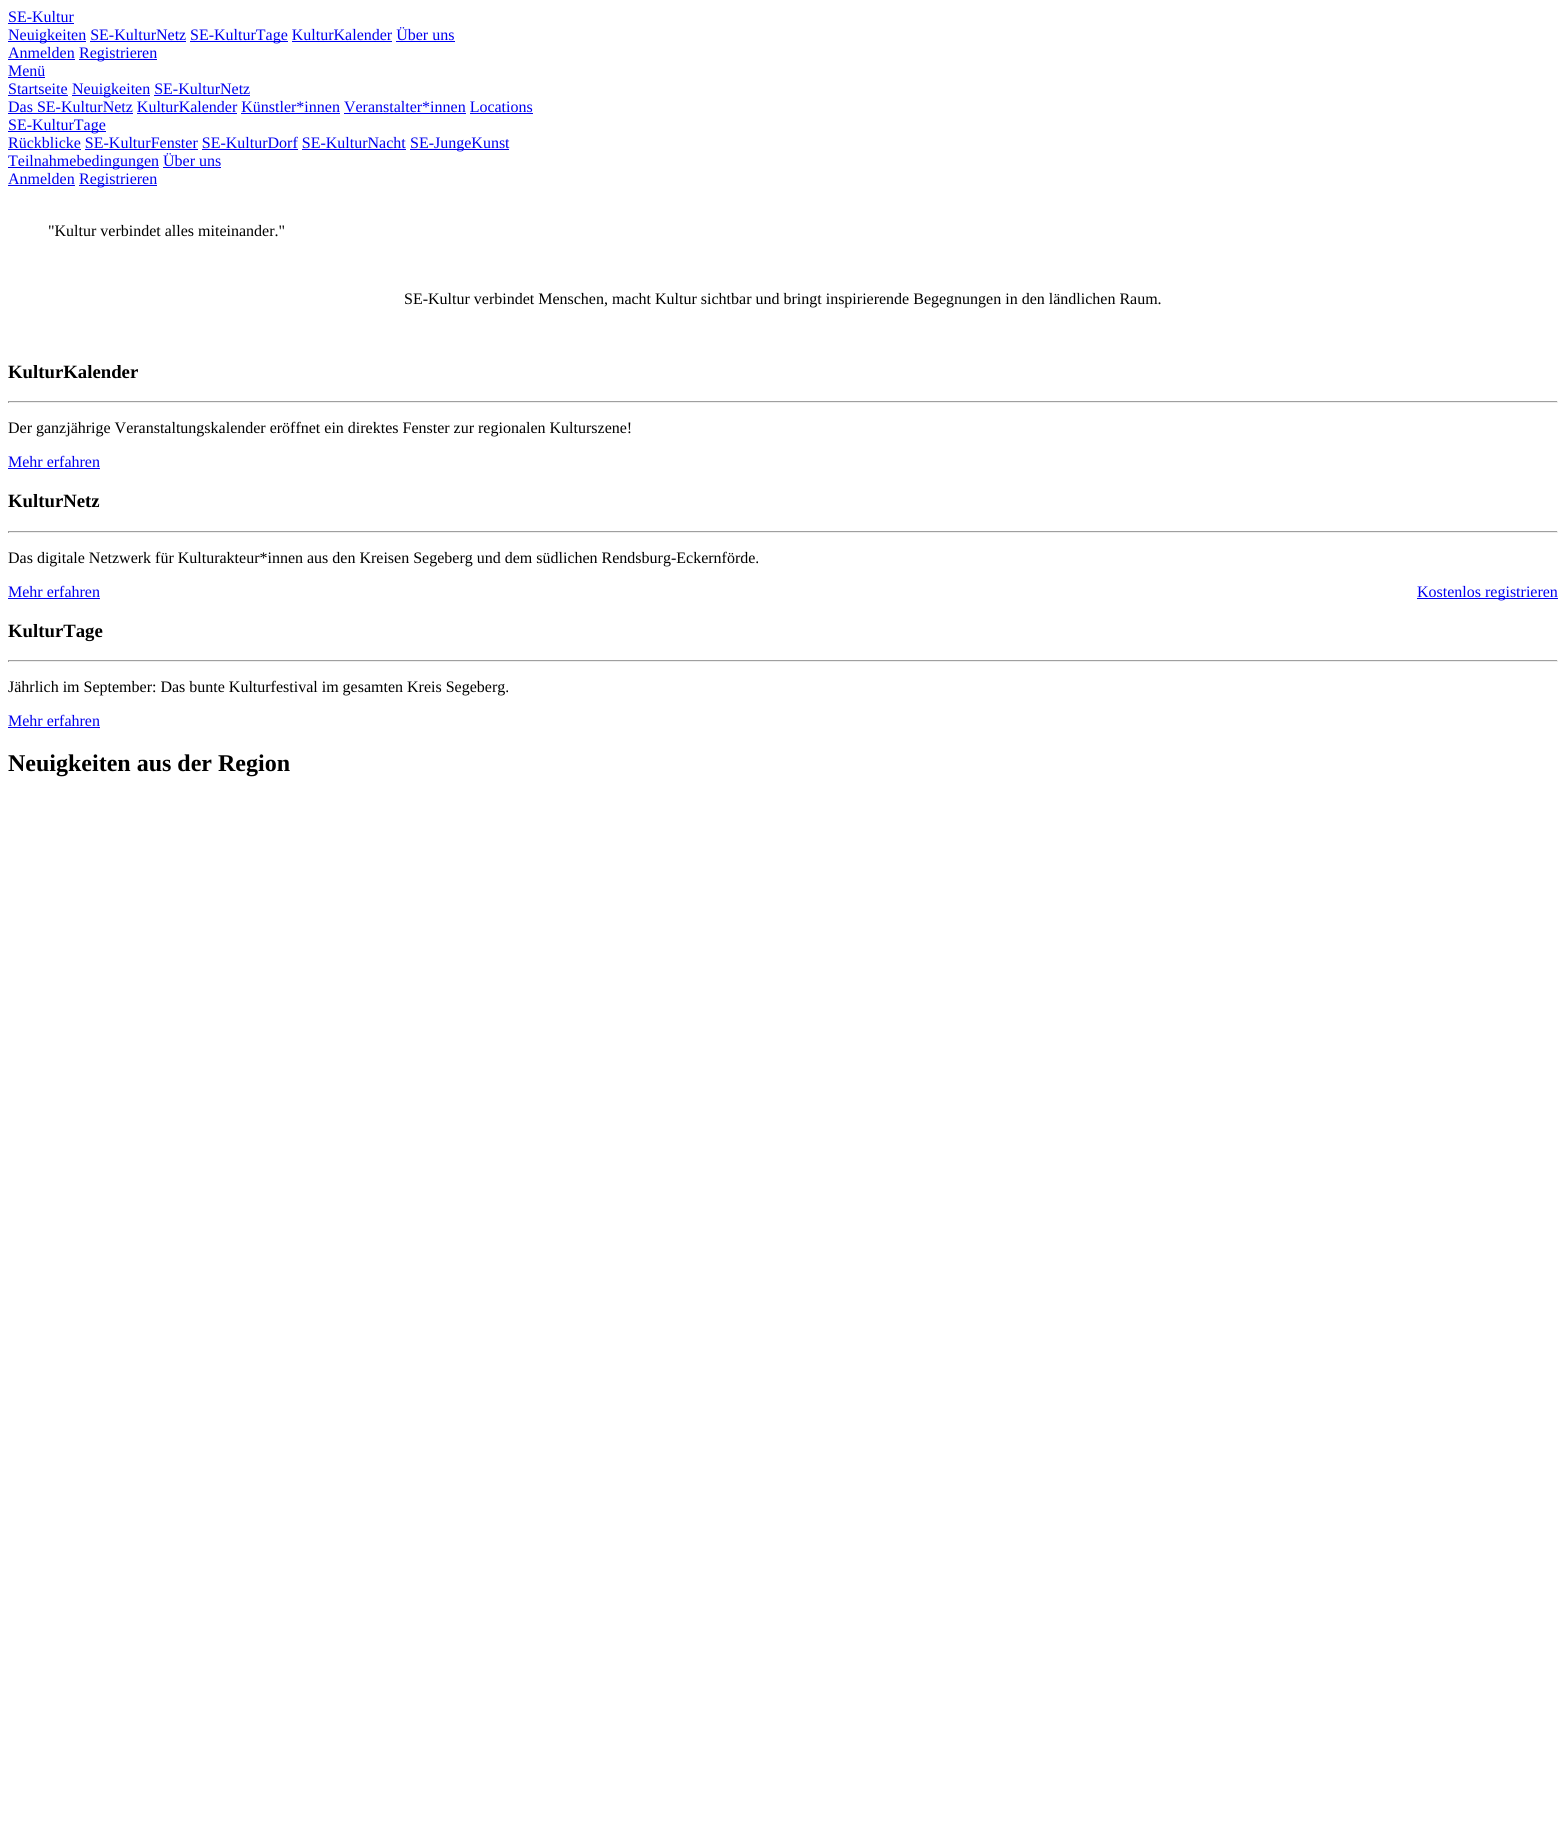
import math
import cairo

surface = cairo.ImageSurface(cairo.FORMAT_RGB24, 1566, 1836)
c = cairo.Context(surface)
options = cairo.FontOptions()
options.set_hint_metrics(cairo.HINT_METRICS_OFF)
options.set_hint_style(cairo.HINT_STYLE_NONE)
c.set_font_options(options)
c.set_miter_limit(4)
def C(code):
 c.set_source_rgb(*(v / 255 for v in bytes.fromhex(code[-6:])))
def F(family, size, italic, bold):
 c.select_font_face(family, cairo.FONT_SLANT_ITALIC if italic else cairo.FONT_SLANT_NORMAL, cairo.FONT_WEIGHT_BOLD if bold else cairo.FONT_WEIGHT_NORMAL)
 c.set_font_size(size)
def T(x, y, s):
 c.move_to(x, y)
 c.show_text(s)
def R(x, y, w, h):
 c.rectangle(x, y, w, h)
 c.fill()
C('ffffff')
c.paint()
F('Liberation Serif',16,0,0)
C('0000ee')
T(8,22,'SE-Kultur')
R(8,23,66,1)
R(8,41,78,1)
T(8,40,'Neuigkeiten SE-KulturNetz')
R(190,41,98,1)
T(190,40,'SE-KulturTage KulturKalender Über uns')
R(90,41,96,1)
R(292,41,100,1)
R(396,41,59,1)
T(8,58,'Anmelden')
R(8,59,67,1)
R(79,59,78,1)
T(79,58,'Registrieren')
T(8,76,'Menü')
R(8,77,37,1)
T(8,94,'Startseite')
R(8,95,60,1)
R(72,95,78,1)
T(72,94,'Neuigkeiten SE-KulturNetz')
R(154,95,96,1)
T(8,112,'Das SE-KulturNetz KulturKalender Künstler*innen Veranstalter*innen Locations')
R(8,113,125,1)
R(137,113,100,1)
R(241,113,99,1)
R(344,113,122,1)
R(470,113,63,1)
R(8,131,98,1)
T(8,130,'SE-KulturTage')
T(8,148,'Rückblicke SE-KulturFenster SE-KulturDorf SE-KulturNacht')
R(8,149,73,1)
R(410,149,99,1)
T(410,148,'SE-JungeKunst')
R(85,149,113,1)
R(202,149,96,1)
R(302,149,104,1)
R(8,167,151,1)
T(8,166,'Teilnahmebedingungen Über uns')
R(163,167,58,1)
T(8,184,'Anmelden')
R(8,185,67,1)
R(79,185,78,1)
T(79,184,'Registrieren')
C('000000')
T(48,236,'"Kultur verbindet alles miteinander."')
T(404,304,'SE-Kultur verbindet Menschen, macht Kultur sichtbar und bringt inspirierende Begegnungen in den ländlichen Raum.')
F('Liberation Serif',18.75,0,1)
T(8,378,'KulturKalender')
C('9f9f9f')
R(8,401,1550,1)
C('eeeeee')
R(1557,401,1,2)
R(8,402,1550,1)
C('9f9f9f')
R(8,401,1,2)
F('Liberation Serif',16,0,0)
C('000000')
T(8,433,'Der ganzjährige Veranstaltungskalender eröffnet ein direktes Fenster zur regionalen Kulturszene!')
C('0000ee')
T(8,467,'Mehr erfahren')
R(8,468,92,1)
F('Liberation Serif',18.75,0,1)
C('000000')
T(8,507,'KulturNetz')
C('9f9f9f')
R(8,531,1550,1)
C('eeeeee')
R(1557,531,1,2)
R(8,532,1550,1)
C('9f9f9f')
R(8,531,1,2)
F('Liberation Serif',16,0,0)
C('000000')
T(8,563,'Das digitale Netzwerk für Kulturakteur*innen aus den Kreisen Segeberg und dem südlichen Rendsburg-Eckernförde.')
C('0000ee')
R(1417,598,141,1)
T(1417,597,'Kostenlos registrieren')
T(8,597,'Mehr erfahren')
R(8,598,92,1)
F('Liberation Serif',18.75,0,1)
C('000000')
T(8,637,'KulturTage')
C('9f9f9f')
R(8,660,1550,1)
C('eeeeee')
R(1557,660,1,2)
R(8,661,1550,1)
C('9f9f9f')
R(8,660,1,2)
F('Liberation Serif',16,0,0)
C('000000')
T(8,692,'Jährlich im September: Das bunte Kulturfestival im gesamten Kreis Segeberg.')
C('0000ee')
T(8,726,'Mehr erfahren')
R(8,727,92,1)
F('Liberation Serif',24,0,1)
C('000000')
T(8,771,'Neuigkeiten aus der Region')
surface.write_to_png('o.png')
